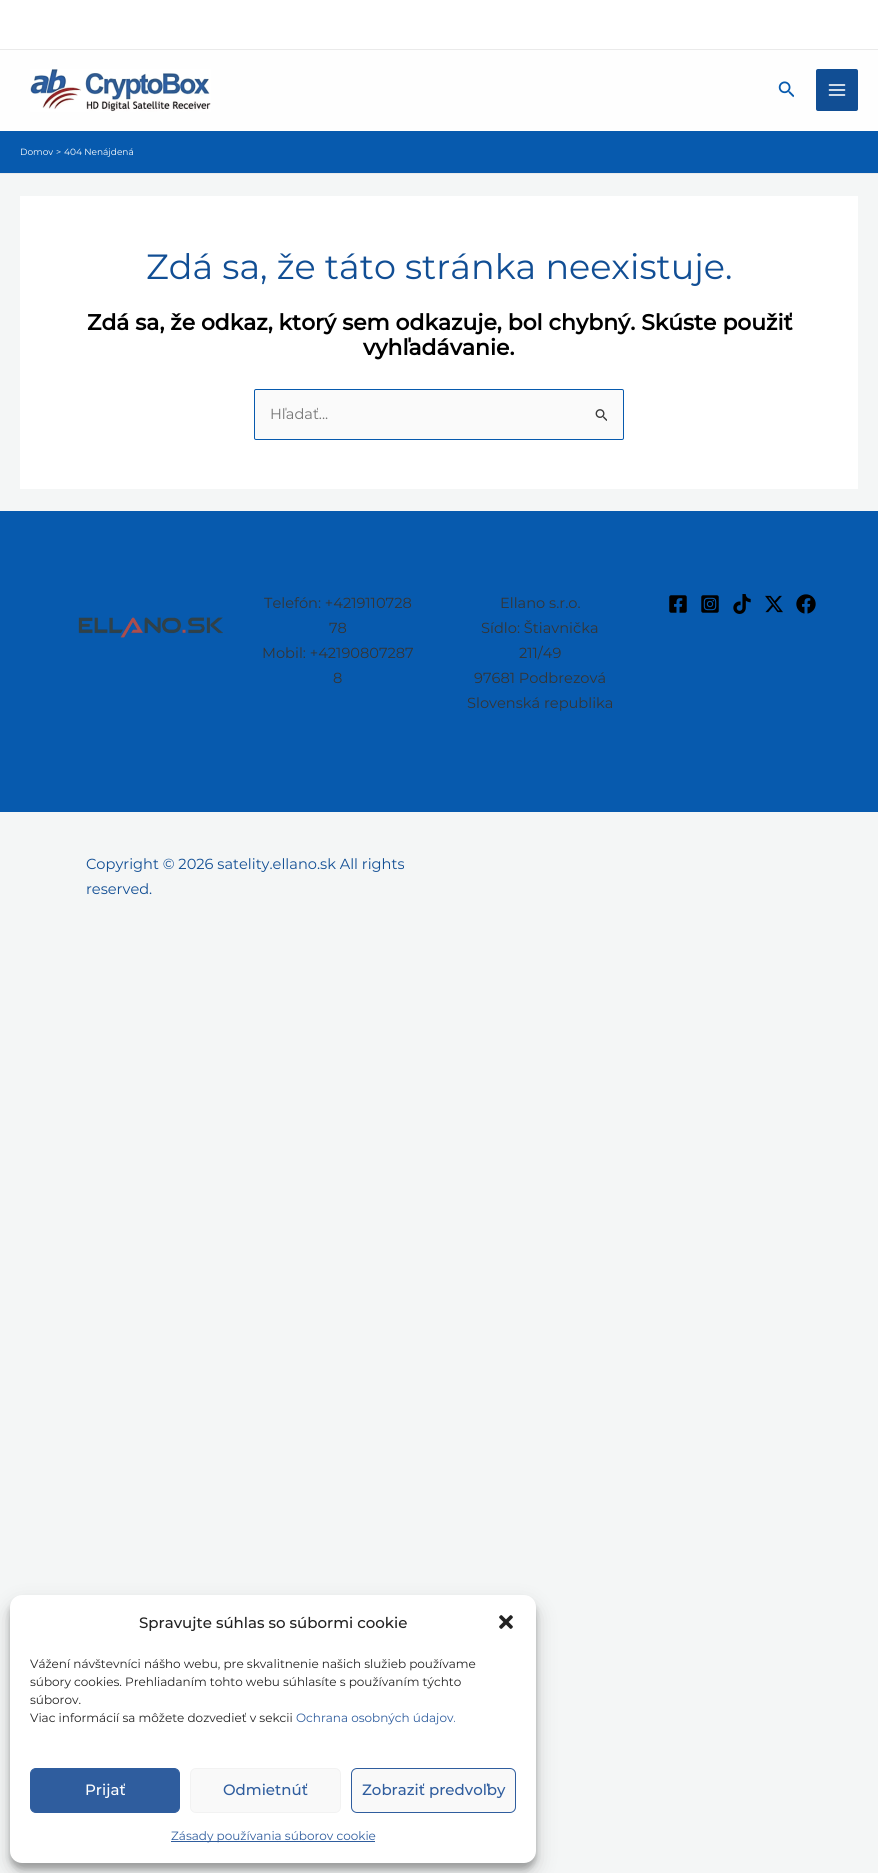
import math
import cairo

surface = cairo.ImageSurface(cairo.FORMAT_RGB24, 878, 1873)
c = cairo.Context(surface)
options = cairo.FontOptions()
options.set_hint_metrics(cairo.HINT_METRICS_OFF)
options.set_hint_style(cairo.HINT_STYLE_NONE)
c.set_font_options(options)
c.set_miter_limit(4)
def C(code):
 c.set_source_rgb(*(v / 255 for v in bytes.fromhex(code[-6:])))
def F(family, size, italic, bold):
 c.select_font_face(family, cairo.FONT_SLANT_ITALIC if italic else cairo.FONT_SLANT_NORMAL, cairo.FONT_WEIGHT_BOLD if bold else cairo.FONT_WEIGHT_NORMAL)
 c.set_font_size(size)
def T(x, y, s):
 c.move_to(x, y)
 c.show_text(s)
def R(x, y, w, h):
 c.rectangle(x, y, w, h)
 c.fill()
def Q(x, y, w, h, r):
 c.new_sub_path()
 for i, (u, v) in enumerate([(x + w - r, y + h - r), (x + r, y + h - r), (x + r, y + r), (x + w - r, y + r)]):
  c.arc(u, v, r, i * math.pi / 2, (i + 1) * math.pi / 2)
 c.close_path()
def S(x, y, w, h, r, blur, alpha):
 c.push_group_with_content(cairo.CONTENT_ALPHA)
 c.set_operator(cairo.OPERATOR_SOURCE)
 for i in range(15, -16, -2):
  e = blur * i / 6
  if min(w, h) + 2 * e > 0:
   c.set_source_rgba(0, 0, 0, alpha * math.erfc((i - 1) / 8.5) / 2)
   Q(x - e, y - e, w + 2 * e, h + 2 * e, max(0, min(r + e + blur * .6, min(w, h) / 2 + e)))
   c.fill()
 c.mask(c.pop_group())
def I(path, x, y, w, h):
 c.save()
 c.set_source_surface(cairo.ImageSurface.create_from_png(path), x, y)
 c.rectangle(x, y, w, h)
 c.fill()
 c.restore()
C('f4f6f6')
c.paint()
C('ffffff')
R(0,0,878,49)
C('eaeaea')
R(0,49,878,1)
C('fefefe')
R(0,50,878,81)
I('1.png',30,69,181,43)
I('2.png',778,81,16,17)
C('114e94')
Q(816,69,42,42,2)
c.fill()
I('3.png',828,84,18,12)
C('075aae')
R(0,131,878,42)
C('eaeaea')
R(0,173,878,1)
F('Montserrat',9,0,0)
C('ffffff')
T(20,155,'Domov')
C('f4f6f6')
T(56,155,'>')
C('ffffff')
T(64,155,'404 Nenájdená')
R(20,196,838,293)
F('Montserrat',35,0,0)
C('114e94')
T(146,279,'Zdá sa, že táto stránka neexistuje.')
F('Montserrat',21.9,0,1)
C('000000')
T(87,330,'Zdá sa, že odkaz, ktorý sem odkazuje, bol chybný. Skúste použiť')
T(363,355,'vyhľadávanie.')
C('fafafa')
Q(254.5,389.5,369,50,1.5)
c.fill_preserve()
C('075aae')
c.set_line_width(1)
c.stroke()
F('Montserrat',14.6,0,0)
C('757575')
T(270,419,'Hľadať...')
I('4.png',595,409,12,12)
C('075aae')
R(0,511,878,301)
I('5.png',78,617,145,21)
C('343434')
T(264,608,'Telefón: +4219110728')
T(329,633,'78')
T(262,658,'Mobil: +42190807287')
T(333,683,'8')
T(500,608,'Ellano s.r.o.')
T(481,633,'Sídlo: Štiavnička')
T(519,658,'211/49')
T(474,683,'97681 Podbrezová')
T(467,708,'Slovenská republika')
I('6.png',669,595,18,18)
I('7.png',701,595,18,18)
I('8.png',733,594,18,20)
I('9.png',765,595,18,18)
I('10.png',796,594,20,20)
C('114e94')
T(86,869,'Copyright © 2026 satelity.ellano.sk All rights')
T(86,894,'reserved.')
C('000000')
S(10,1601,526,268,12,3,.23)
S(10,1605,526,268,12,10,.19)
C('ffffff')
Q(10,1595,526,268,12)
c.fill()
F('Montserrat Medium',15,0,0)
C('222222')
T(139,1628,'Spravujte súhlas so súbormi cookie')
I('11.png',499,1615,14,14)
F('Montserrat',12,0,0)
T(30,1668,'Vážení návštevníci nášho webu, pre skvalitnenie našich služieb používame')
T(30,1686,'súbory cookies. Prehliadaním tohto webu súhlasíte s používaním týchto')
T(30,1704,'súborov.')
T(30,1722,'Viac informácií sa môžete dozvedieť v sekcii')
C('2f5d9e')
T(296,1722,'Ochrana osobných údajov.')
Q(30.5,1768.5,149,44,5.5)
c.fill_preserve()
c.stroke()
F('Montserrat Medium',15,0,0)
C('ffffff')
T(85,1795,'Prijať')
C('f9f9f9')
Q(190.5,1768.5,150,44,5.5)
c.fill_preserve()
C('f2f2f2')
c.stroke()
C('2f5d9e')
T(223,1795,'Odmietnúť')
C('f9f9f9')
Q(351.5,1768.5,164,44,5.5)
c.fill_preserve()
C('2f5d9e')
c.stroke()
T(362,1795,'Zobraziť predvoľby')
R(171,1841,204,1)
F('Montserrat',12,0,0)
T(171,1840,'Zásady používania súborov cookie')
surface.write_to_png('o.png')
